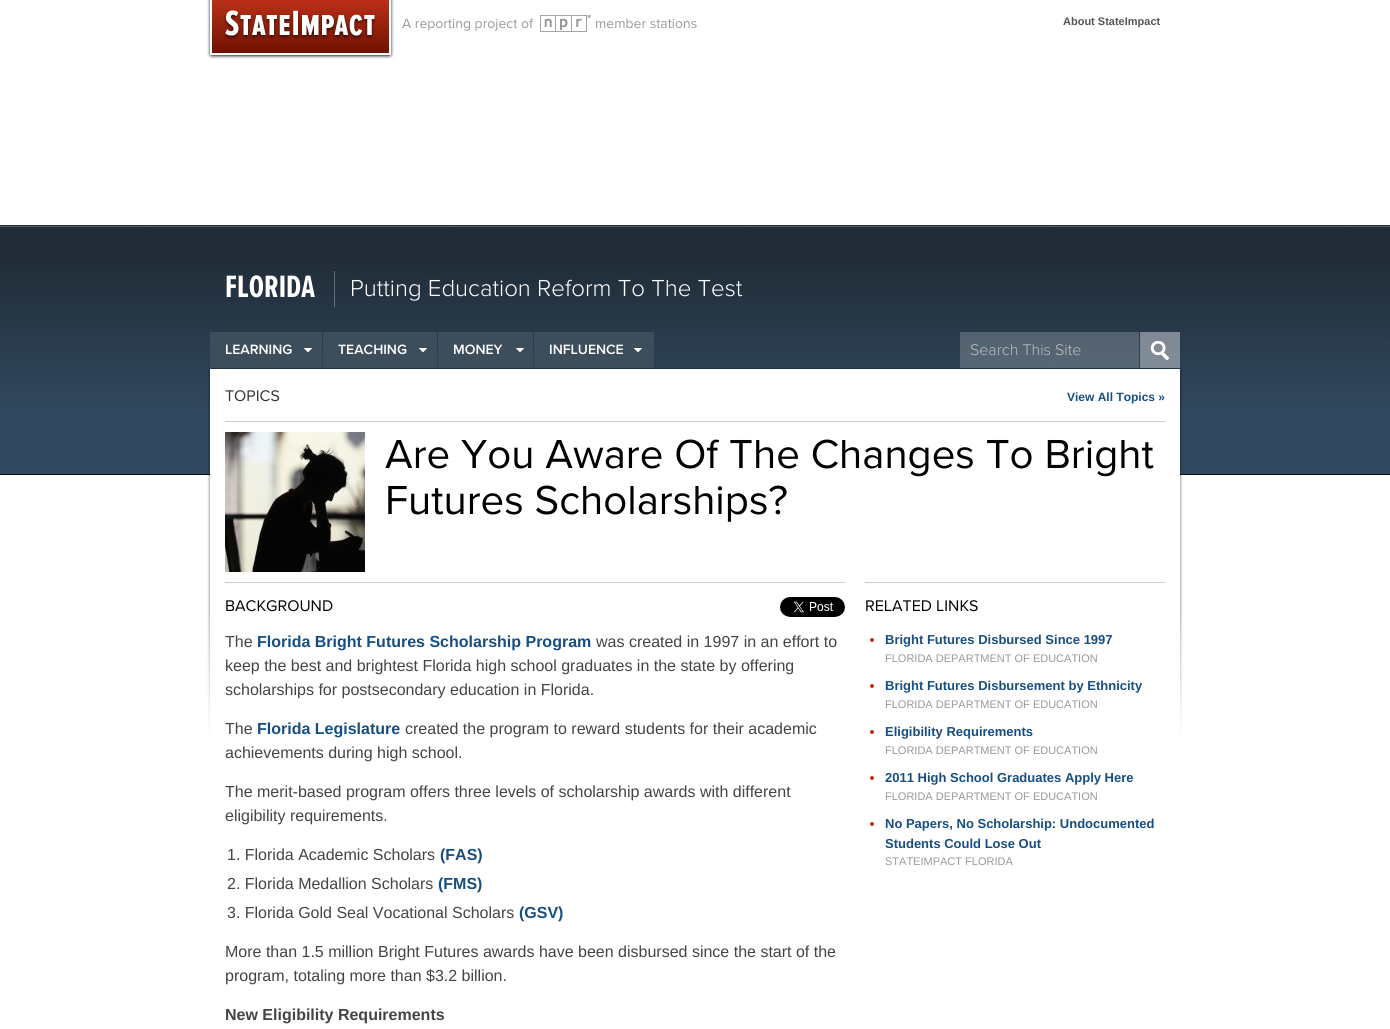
import math
import cairo

surface = cairo.ImageSurface(cairo.FORMAT_RGB24, 1390, 1029)
c = cairo.Context(surface)
options = cairo.FontOptions()
options.set_hint_metrics(cairo.HINT_METRICS_OFF)
options.set_hint_style(cairo.HINT_STYLE_NONE)
c.set_font_options(options)
c.set_miter_limit(4)
def C(code):
 c.set_source_rgb(*(v / 255 for v in bytes.fromhex(code[-6:])))
def F(family, size, italic, bold):
 c.select_font_face(family, cairo.FONT_SLANT_ITALIC if italic else cairo.FONT_SLANT_NORMAL, cairo.FONT_WEIGHT_BOLD if bold else cairo.FONT_WEIGHT_NORMAL)
 c.set_font_size(size)
def T(x, y, s):
 c.move_to(x, y)
 c.show_text(s)
def R(x, y, w, h):
 c.rectangle(x, y, w, h)
 c.fill()
def I(path, x, y, w, h):
 c.save()
 c.set_source_surface(cairo.ImageSurface.create_from_png(path), x, y)
 c.rectangle(x, y, w, h)
 c.fill()
 c.restore()
C('ffffff')
c.paint()
I('1.png',207,0,187,59)
F('Proxima Nova',14,0,0)
C('999999')
T(402,28,'A reporting project of')
I('2.png',540,15,51,17)
T(595,28,'member stations')
F('Liberation Sans',11,0,1)
C('555555')
T(1063,25,'About StateImpact')
I('3.png',0,225,1390,250)
F('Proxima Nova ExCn',32,0,1)
C('ffffff')
T(225,297,'FLORIDA')
c.set_source_rgba(1,1,1,0.3)
R(334,271,1,36)
F('Proxima Nova Light',24,0,0)
C('ffffff')
T(350,296,'Putting Education Reform To The Test')
c.set_source_rgba(1,1,1,0.2)
R(960,332,179,36)
F('Proxima Nova Light',16,0,0)
C('bfbfbf')
T(970,355,'Search This Site')
c.set_source_rgba(1,1,1,0.4)
R(1140,332,40,36)
I('4.png',1150,341,19,20)
C('3c4d5c')
R(210,332,112,36)
I('5.png',304,348,8,5)
F('Proxima Nova SemiBold',14,0,0)
C('ffffff')
T(225,354,'LEARNING')
C('3c4d5c')
R(323,332,114,36)
I('5.png',419,348,8,5)
C('ffffff')
T(338,354,'TEACHING')
C('3c4d5c')
R(438,332,95,36)
I('5.png',516,348,8,5)
C('ffffff')
T(453,354,'MONEY')
C('3c4d5c')
R(534,332,120,36)
I('5.png',634,348,8,5)
C('ffffff')
T(549,354,'INFLUENCE')
I('6.png',207,368,976,365)
C('cccccc')
R(225,421,940,1)
F('Proxima Nova',16,0,0)
C('333333')
T(225,401,'TOPICS')
F('Liberation Sans',12,0,1)
C('174e82')
T(1067,401,'View All Topics »')
I('7.png',225,432,140,140)
F('Proxima Nova',42,0,0)
C('000000')
T(385,468,'Are You Aware Of The Changes To Bright')
T(385,514,'Futures Scholarships?')
C('cccccc')
R(225,582,620,1)
F('Proxima Nova',16,0,0)
C('000000')
T(225,611,'BACKGROUND')
I('8.png',780,597,65,20)
F('Liberation Sans',16,0,0)
C('444444')
T(225,647,'The')
F('Liberation Sans',16,0,1)
C('174e82')
T(257,647,'Florida Bright Futures Scholarship Program')
F('Liberation Sans',16,0,0)
C('444444')
T(596,647,'was created in 1997 in an effort to')
T(225,671,'keep the best and brightest Florida high school graduates in the state by offering')
T(225,695,'scholarships for postsecondary education in Florida.')
T(225,734,'The')
F('Liberation Sans',16,0,1)
C('174e82')
T(257,734,'Florida Legislature')
F('Liberation Sans',16,0,0)
C('444444')
T(405,734,'created the program to reward students for their academic')
T(225,758,'achievements during high school.')
T(225,797,'The merit-based program offers three levels of scholarship awards with different')
T(225,821,'eligibility requirements.')
T(227,860,'1. Florida Academic Scholars')
F('Liberation Sans',16,0,1)
C('174e82')
T(440,860,'(FAS)')
F('Liberation Sans',16,0,0)
C('444444')
T(227,889,'2. Florida Medallion Scholars')
F('Liberation Sans',16,0,1)
C('174e82')
T(438,889,'(FMS)')
F('Liberation Sans',16,0,0)
C('444444')
T(227,918,'3. Florida Gold Seal Vocational Scholars')
F('Liberation Sans',16,0,1)
C('174e82')
T(519,918,'(GSV)')
F('Liberation Sans',16,0,0)
C('444444')
T(225,957,'More than 1.5 million Bright Futures awards have been disbursed since the start of the')
T(225,981,'program, totaling more than $3.2 billion.')
F('Liberation Sans',16,0,1)
T(225,1020,'New Eligibility Requirements')
C('cccccc')
R(865,582,300,1)
F('Proxima Nova',16,0,0)
C('000000')
T(865,611,'RELATED LINKS')
C('bf3119')
c.new_path()
c.arc(872,640,2,0,2 * math.pi)
c.fill()
F('Liberation Sans',13,0,1)
C('174e82')
T(885,644,'Bright Futures Disbursed Since 1997')
F('Liberation Sans',11,0,0)
C('999999')
T(885,662,'FLORIDA DEPARTMENT OF EDUCATION')
C('bf3119')
c.new_path()
c.arc(872,686,2,0,2 * math.pi)
c.fill()
F('Liberation Sans',13,0,1)
C('174e82')
T(885,690,'Bright Futures Disbursement by Ethnicity')
F('Liberation Sans',11,0,0)
C('999999')
T(885,708,'FLORIDA DEPARTMENT OF EDUCATION')
C('bf3119')
c.new_path()
c.arc(872,732,2,0,2 * math.pi)
c.fill()
F('Liberation Sans',13,0,1)
C('174e82')
T(885,736,'Eligibility Requirements')
F('Liberation Sans',11,0,0)
C('999999')
T(885,754,'FLORIDA DEPARTMENT OF EDUCATION')
C('bf3119')
c.new_path()
c.arc(872,778,2,0,2 * math.pi)
c.fill()
F('Liberation Sans',13,0,1)
C('174e82')
T(885,782,'2011 High School Graduates Apply Here')
F('Liberation Sans',11,0,0)
C('999999')
T(885,800,'FLORIDA DEPARTMENT OF EDUCATION')
C('bf3119')
c.new_path()
c.arc(872,824,2,0,2 * math.pi)
c.fill()
F('Liberation Sans',13,0,1)
C('174e82')
T(885,828,'No Papers, No Scholarship: Undocumented')
T(885,848,'Students Could Lose Out')
F('Liberation Sans',11,0,0)
C('999999')
T(885,865,'STATEIMPACT FLORIDA')
surface.write_to_png('o.png')
